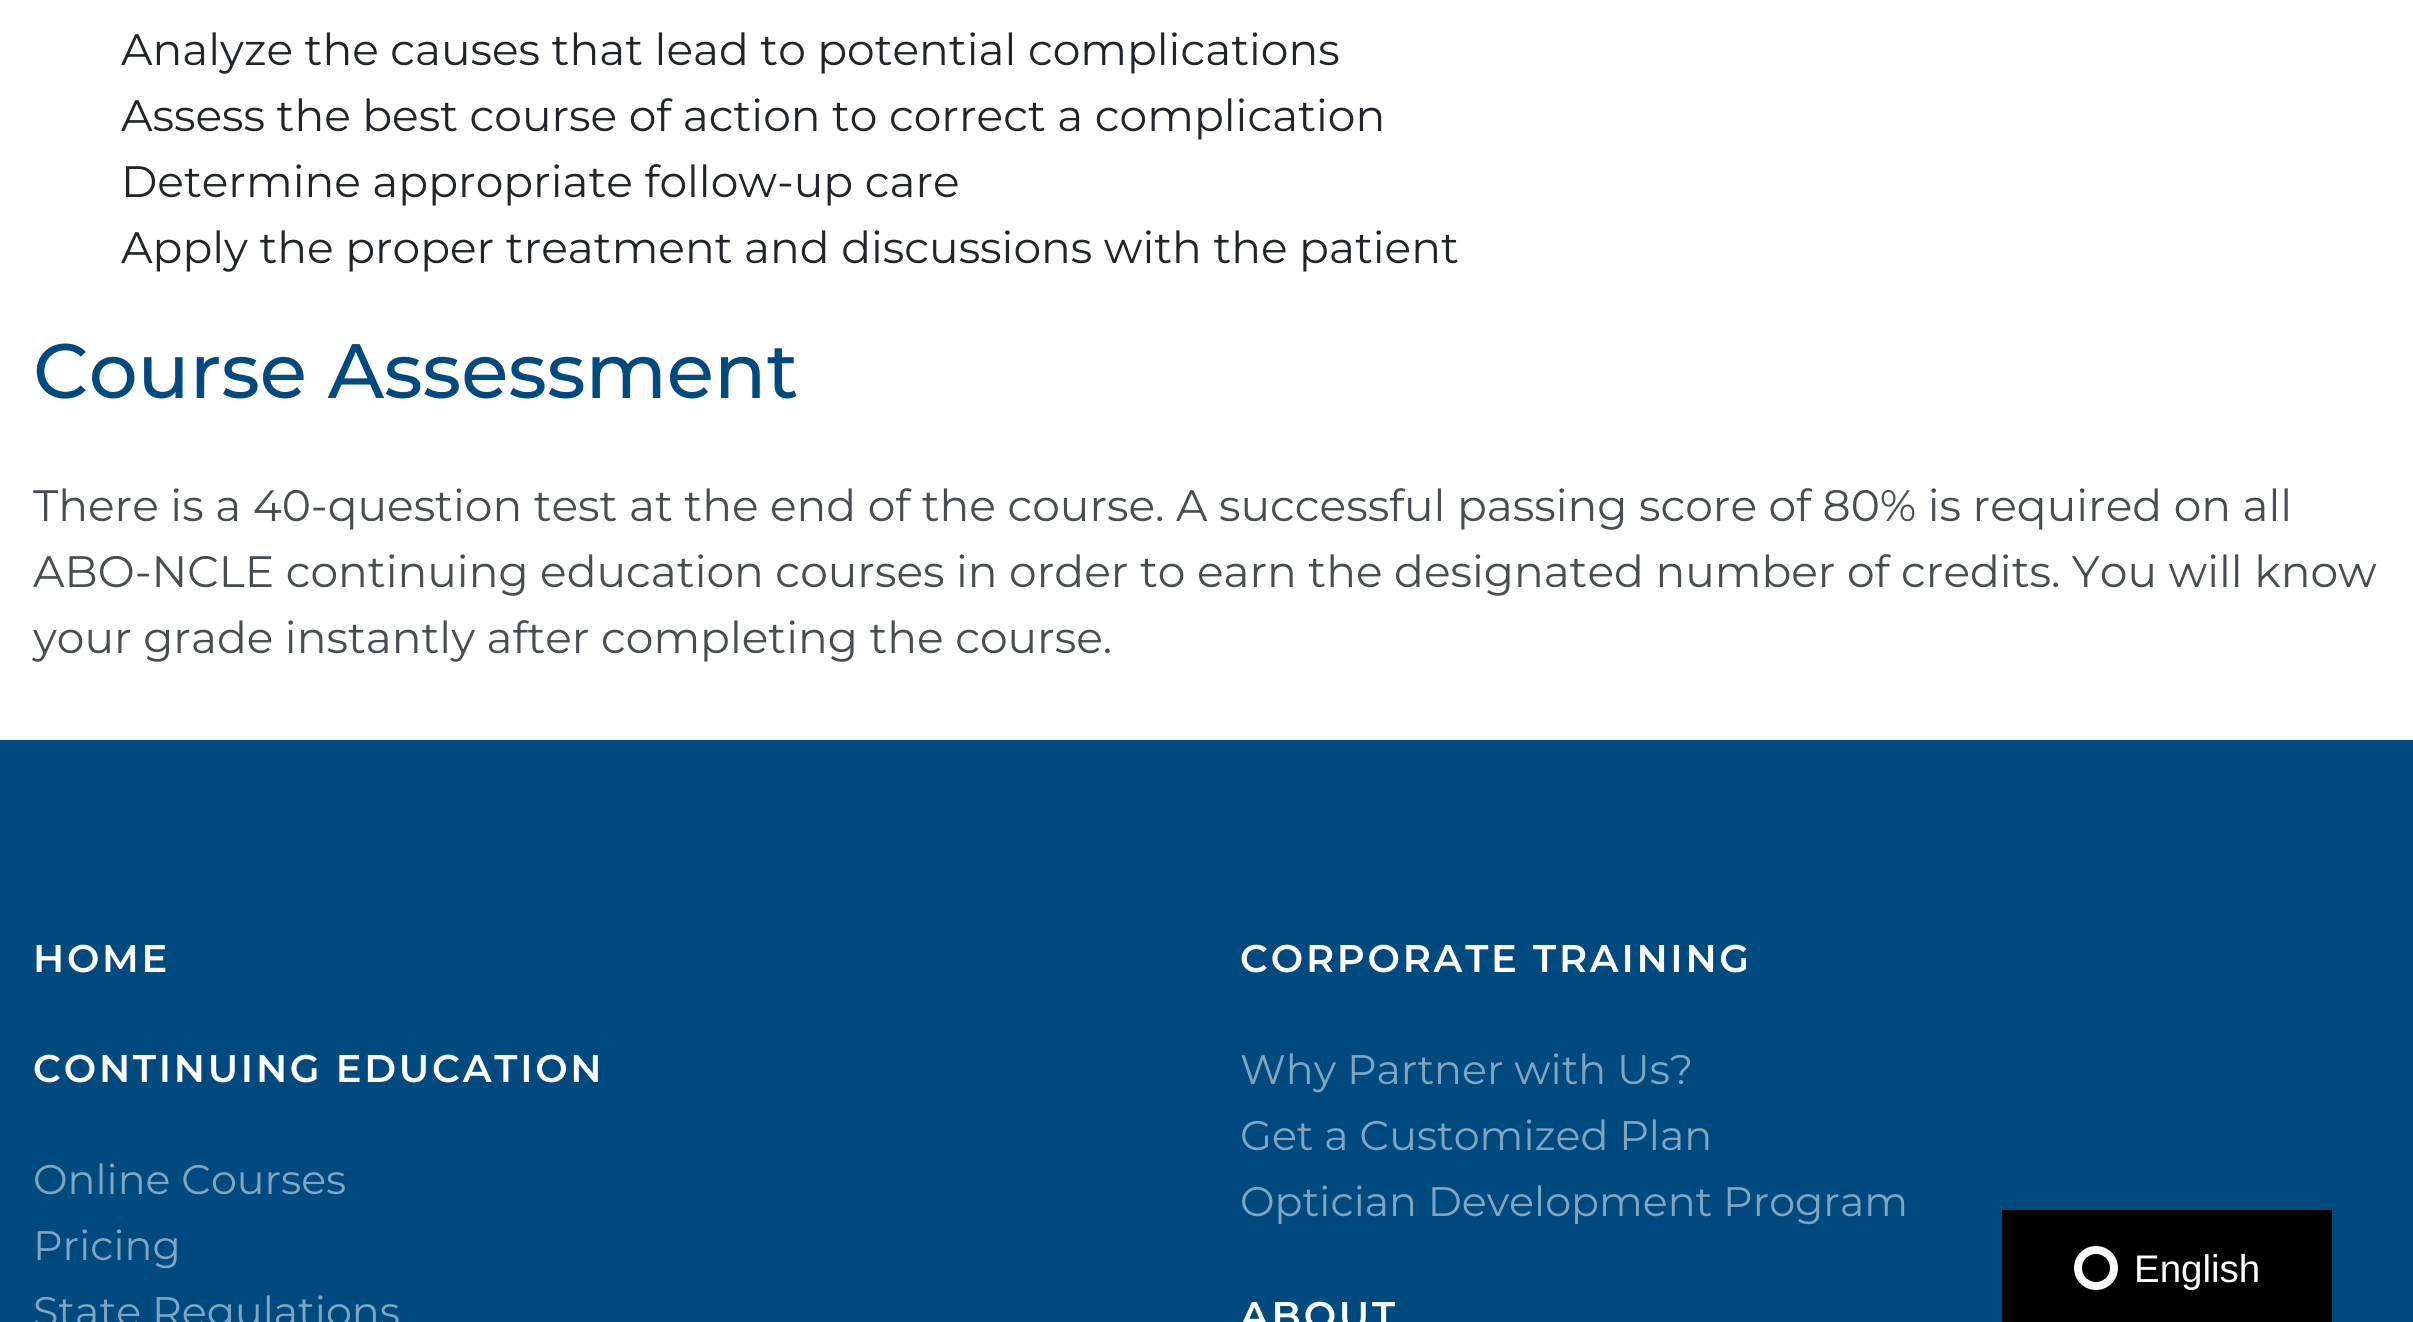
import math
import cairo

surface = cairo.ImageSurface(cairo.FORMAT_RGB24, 2413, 1322)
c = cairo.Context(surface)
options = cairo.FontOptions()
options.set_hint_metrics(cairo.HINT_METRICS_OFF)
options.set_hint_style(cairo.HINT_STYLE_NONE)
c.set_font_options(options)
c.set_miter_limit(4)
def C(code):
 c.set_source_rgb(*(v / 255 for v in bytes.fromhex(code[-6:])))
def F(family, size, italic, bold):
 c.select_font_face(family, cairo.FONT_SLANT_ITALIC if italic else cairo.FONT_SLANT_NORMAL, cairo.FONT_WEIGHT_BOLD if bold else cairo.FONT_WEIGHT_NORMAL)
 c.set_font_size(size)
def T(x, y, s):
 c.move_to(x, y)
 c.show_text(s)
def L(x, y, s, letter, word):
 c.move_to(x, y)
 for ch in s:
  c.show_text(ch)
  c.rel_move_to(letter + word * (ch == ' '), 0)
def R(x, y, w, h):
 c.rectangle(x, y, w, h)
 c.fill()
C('ffffff')
c.paint()
F('Montserrat',44,0,0)
C('212529')
T(121,65,'Analyze the causes that lead to potential complications')
T(121,131,'Assess the best course of action to correct a complication')
T(121,197,'Determine appropriate follow-up care')
T(121,263,'Apply the proper treatment and discussions with the patient')
F('Montserrat Medium',77,0,0)
C('004a80')
T(33,398,'Course Assessment')
F('Montserrat',44,0,0)
C('484d52')
T(33,521,'There is a 40-question test at the end of the course. A successful passing score of 80% is required on all')
T(33,587,'ABO-NCLE continuing education courses in order to earn the designated number of credits. You will know')
T(33,653,'your grade instantly after completing the course.')
C('004a80')
R(0,740,2413,582)
F('Montserrat SemiBold',38.5,0,0)
C('ffffff')
L(33,972,'HOME',2.75,0)
L(33,1082,'CONTINUING EDUCATION',2.75,0)
F('Montserrat',41.25,0,0)
C('80a5c0')
T(33,1194,'Online Courses')
T(33,1260,'Pricing')
T(33,1326,'State Regulations')
F('Montserrat SemiBold',38.5,0,0)
C('ffffff')
L(1240,972,'CORPORATE TRAINING',2.75,0)
F('Montserrat',41.25,0,0)
C('80a5c0')
T(1240,1084,'Why Partner with Us?')
T(1240,1150,'Get a Customized Plan')
T(1240,1216,'Optician Development Program')
F('Montserrat SemiBold',38.5,0,0)
C('ffffff')
L(1240,1329,'ABOUT',2.75,0)
C('000000')
R(2002,1210,330,112)
c.new_path()
c.arc(2096,1268,18,0,2 * math.pi)
C('ffffff')
c.set_line_width(8)
c.stroke()
F('Liberation Sans',38.5,0,0)
T(2134,1282,'English')
surface.write_to_png('o.png')
